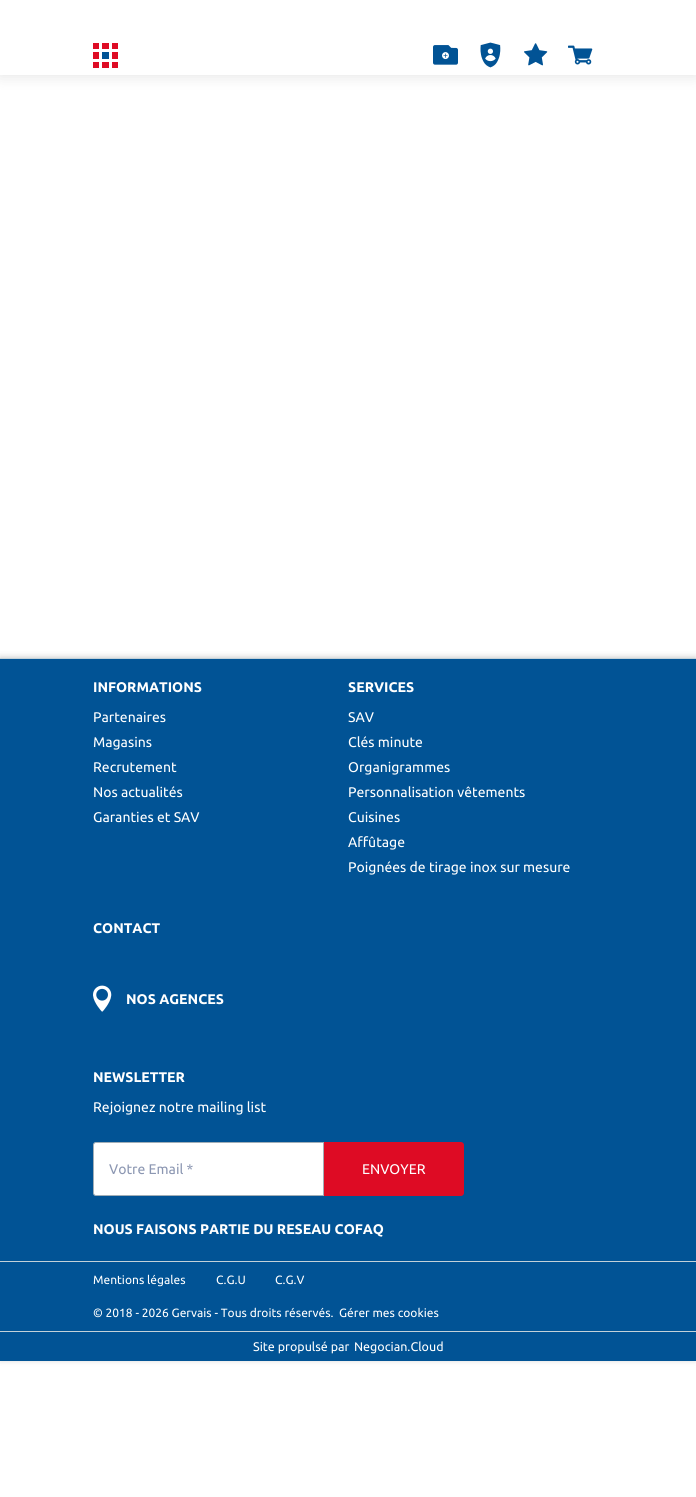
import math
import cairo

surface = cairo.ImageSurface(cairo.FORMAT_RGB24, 696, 1497)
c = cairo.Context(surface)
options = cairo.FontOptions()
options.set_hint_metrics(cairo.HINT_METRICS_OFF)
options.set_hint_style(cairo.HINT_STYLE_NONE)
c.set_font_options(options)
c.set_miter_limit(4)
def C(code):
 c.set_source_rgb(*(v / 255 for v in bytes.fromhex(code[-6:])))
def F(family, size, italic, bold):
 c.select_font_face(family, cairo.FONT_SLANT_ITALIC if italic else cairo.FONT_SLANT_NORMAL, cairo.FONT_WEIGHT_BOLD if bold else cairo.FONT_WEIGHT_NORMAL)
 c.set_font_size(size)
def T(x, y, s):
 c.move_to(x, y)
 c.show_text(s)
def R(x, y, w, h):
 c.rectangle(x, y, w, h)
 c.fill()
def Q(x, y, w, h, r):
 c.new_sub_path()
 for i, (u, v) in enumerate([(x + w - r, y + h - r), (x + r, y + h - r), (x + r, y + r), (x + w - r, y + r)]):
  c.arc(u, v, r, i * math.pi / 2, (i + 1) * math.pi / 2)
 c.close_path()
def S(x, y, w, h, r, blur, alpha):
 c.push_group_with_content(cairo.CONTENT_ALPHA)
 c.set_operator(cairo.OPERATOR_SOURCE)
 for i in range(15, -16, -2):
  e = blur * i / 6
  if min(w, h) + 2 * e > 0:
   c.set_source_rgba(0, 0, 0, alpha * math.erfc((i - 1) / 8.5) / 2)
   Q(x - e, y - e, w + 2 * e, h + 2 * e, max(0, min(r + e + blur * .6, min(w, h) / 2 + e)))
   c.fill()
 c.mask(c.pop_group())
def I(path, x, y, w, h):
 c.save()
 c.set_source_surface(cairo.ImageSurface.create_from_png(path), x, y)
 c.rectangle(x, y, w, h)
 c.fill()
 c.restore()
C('ffffff')
c.paint()
C('000000')
S(0,2,696,75,0,7,.1)
C('ffffff')
R(0,0,696,75)
I('1.png',93,43,25,25)
I('2.png',433,45,25,20)
I('3.png',480,42,21,26)
I('4.png',524,43,24,23)
I('5.png',568,45,25,20)
C('000000')
S(0,657,696,703,0,3,.2)
C('015395')
R(0,659,696,702)
C('c2d1d9')
R(0,658,696,1)
F('Ubuntu',14,0,1)
C('ffffff')
T(93,692,'INFORMATIONS')
F('Ubuntu',14,0,0)
T(93,722,'Partenaires')
T(93,747,'Magasins')
T(93,772,'Recrutement')
T(93,797,'Nos actualités')
T(93,822,'Garanties et SAV')
F('Ubuntu',14,0,1)
T(348,692,'SERVICES')
F('Ubuntu',14,0,0)
T(348,722,'SAV')
T(348,747,'Clés minute')
T(348,772,'Organigrammes')
T(348,797,'Personnalisation vêtements')
T(348,822,'Cuisines')
T(348,847,'Affûtage')
T(348,872,'Poignées de tirage inox sur mesure')
F('Ubuntu',14,0,1)
T(93,933,'CONTACT')
I('6.png',93,985,19,27)
T(126,1004,'NOS AGENCES')
T(93,1082,'NEWSLETTER')
F('Ubuntu',14,0,0)
T(93,1112,'Rejoignez notre mailing list')
c.new_path()
c.move_to(96,1142.5)
c.line_to(323.5,1142.5)
c.line_to(323.5,1195.5)
c.line_to(96,1195.5)
c.curve_to(94.5,1195.5,93.5,1194.5,93.5,1193)
c.line_to(93.5,1145)
c.curve_to(93.5,1143.5,94.5,1142.5,96,1142.5)
c.close_path()
c.fill_preserve()
C('a1aeb7')
c.set_line_width(1)
c.stroke()
C('8c97b2')
T(109,1174,'Votre Email *')
C('de0b24')
c.new_path()
c.move_to(324,1142)
c.line_to(461,1142)
c.curve_to(462.5,1142,464,1143.5,464,1145)
c.line_to(464,1193)
c.curve_to(464,1194.5,462.5,1196,461,1196)
c.line_to(324,1196)
c.close_path()
c.fill()
C('ffffff')
T(362,1174,'ENVOYER')
F('Ubuntu',14,0,1)
T(93,1234,'NOUS FAISONS PARTIE DU RESEAU COFAQ')
C('c2d1d9')
R(0,1261,696,1)
R(0,1331,696,1)
F('Ubuntu',12,0,0)
C('ffffff')
T(93,1284,'Mentions légales')
T(216,1284,'C.G.U')
T(275,1284,'C.G.V')
T(93,1317,'© 2018 - 2026 Gervais - Tous droits réservés.')
T(339,1317,'Gérer mes cookies')
F('Ubuntu',12.5,0,0)
T(253,1351,'Site propulsé par')
T(354,1351,'Negocian.Cloud')
surface.write_to_png('o.png')
